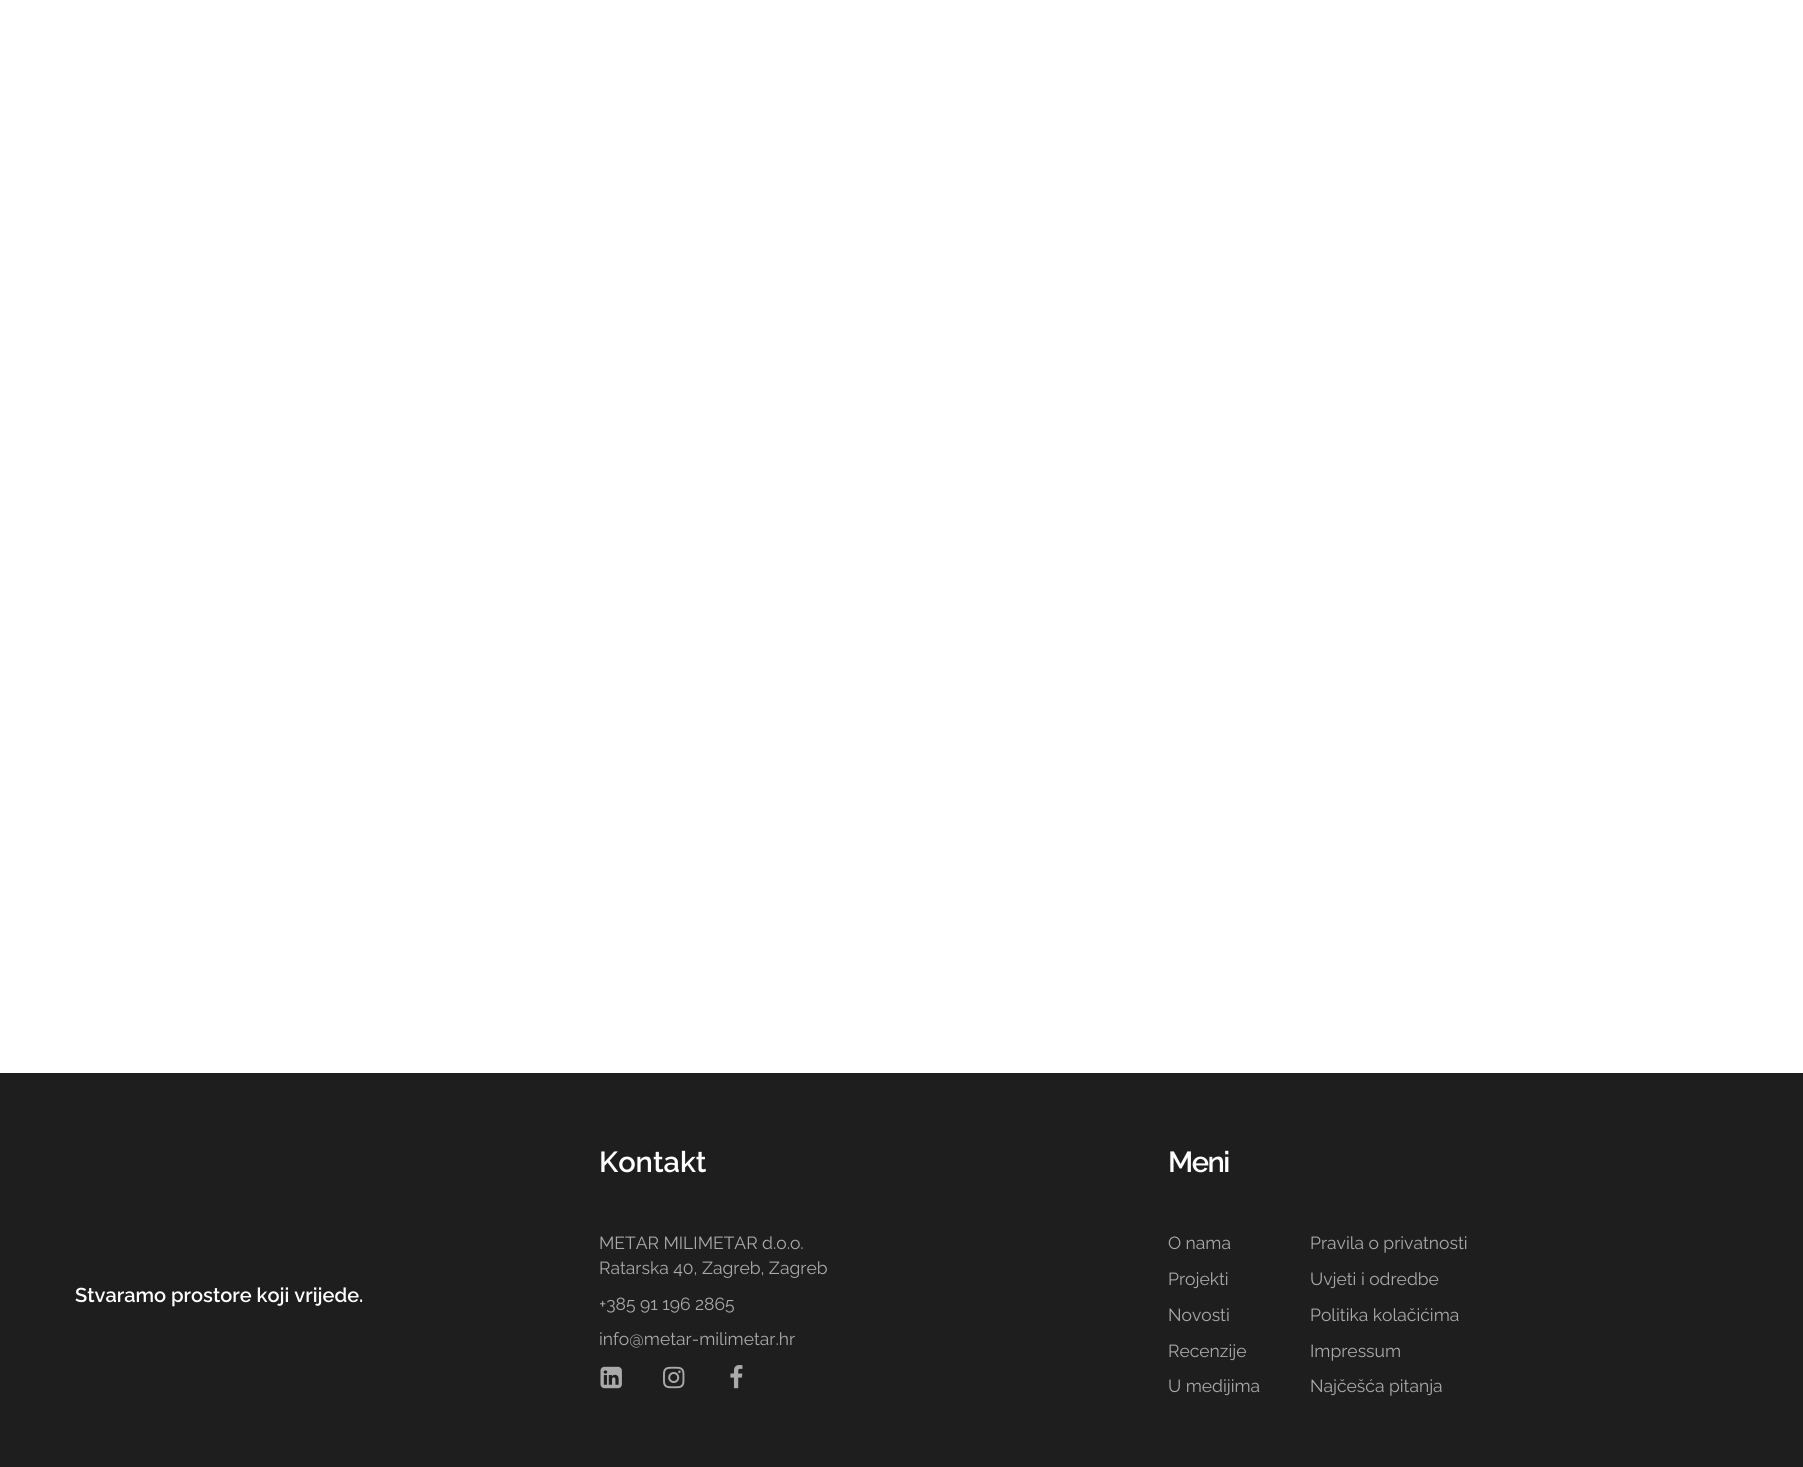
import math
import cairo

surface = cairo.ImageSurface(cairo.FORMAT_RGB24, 1803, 1467)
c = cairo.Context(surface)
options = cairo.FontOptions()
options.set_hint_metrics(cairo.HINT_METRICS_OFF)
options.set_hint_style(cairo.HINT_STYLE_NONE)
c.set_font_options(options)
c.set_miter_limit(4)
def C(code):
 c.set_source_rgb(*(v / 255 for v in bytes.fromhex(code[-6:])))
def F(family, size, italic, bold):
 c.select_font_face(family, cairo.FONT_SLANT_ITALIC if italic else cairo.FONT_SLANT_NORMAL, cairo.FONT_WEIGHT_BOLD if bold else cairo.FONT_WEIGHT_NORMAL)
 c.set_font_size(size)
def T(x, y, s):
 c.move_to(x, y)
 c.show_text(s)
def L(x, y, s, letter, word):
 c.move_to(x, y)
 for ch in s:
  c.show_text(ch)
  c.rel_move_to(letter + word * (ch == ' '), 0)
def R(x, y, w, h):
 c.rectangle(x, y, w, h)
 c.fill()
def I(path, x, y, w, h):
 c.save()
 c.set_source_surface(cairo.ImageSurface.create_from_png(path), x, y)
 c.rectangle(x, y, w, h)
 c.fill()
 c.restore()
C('ffffff')
c.paint()
C('1e1e1e')
R(0,1073,1803,394)
F('Raleway SemiBold',20,0,0)
C('ffffff')
T(75,1302,'Stvaramo prostore koji vrijede.')
F('Raleway SemiBold',29,0,0)
T(599,1172,'Kontakt')
F('Raleway',17.5,0,0)
C('aaaaaa')
T(599,1249,'METAR MILIMETAR d.o.o.')
T(599,1274,'Ratarska 40, Zagreb, Zagreb')
T(599,1310,'+385 91 196 2865')
T(599,1345,'info@metar-milimetar.hr')
I('1.png',600,1366,22,23)
I('2.png',663,1366,22,23)
I('3.png',730,1365,13,24)
F('Raleway SemiBold',29,0,0)
C('ffffff')
L(1168,1172,'Meni',-1.5,0)
F('Raleway',17.5,0,0)
C('aaaaaa')
T(1168,1249,'O nama')
T(1168,1285,'Projekti')
T(1168,1321,'Novosti')
T(1168,1357,'Recenzije')
T(1168,1392,'U medijima')
T(1310,1249,'Pravila o privatnosti')
T(1310,1285,'Uvjeti i odredbe')
T(1310,1321,'Politika kolačićima')
T(1310,1357,'Impressum')
T(1310,1392,'Najčešća pitanja')
surface.write_to_png('o.png')
